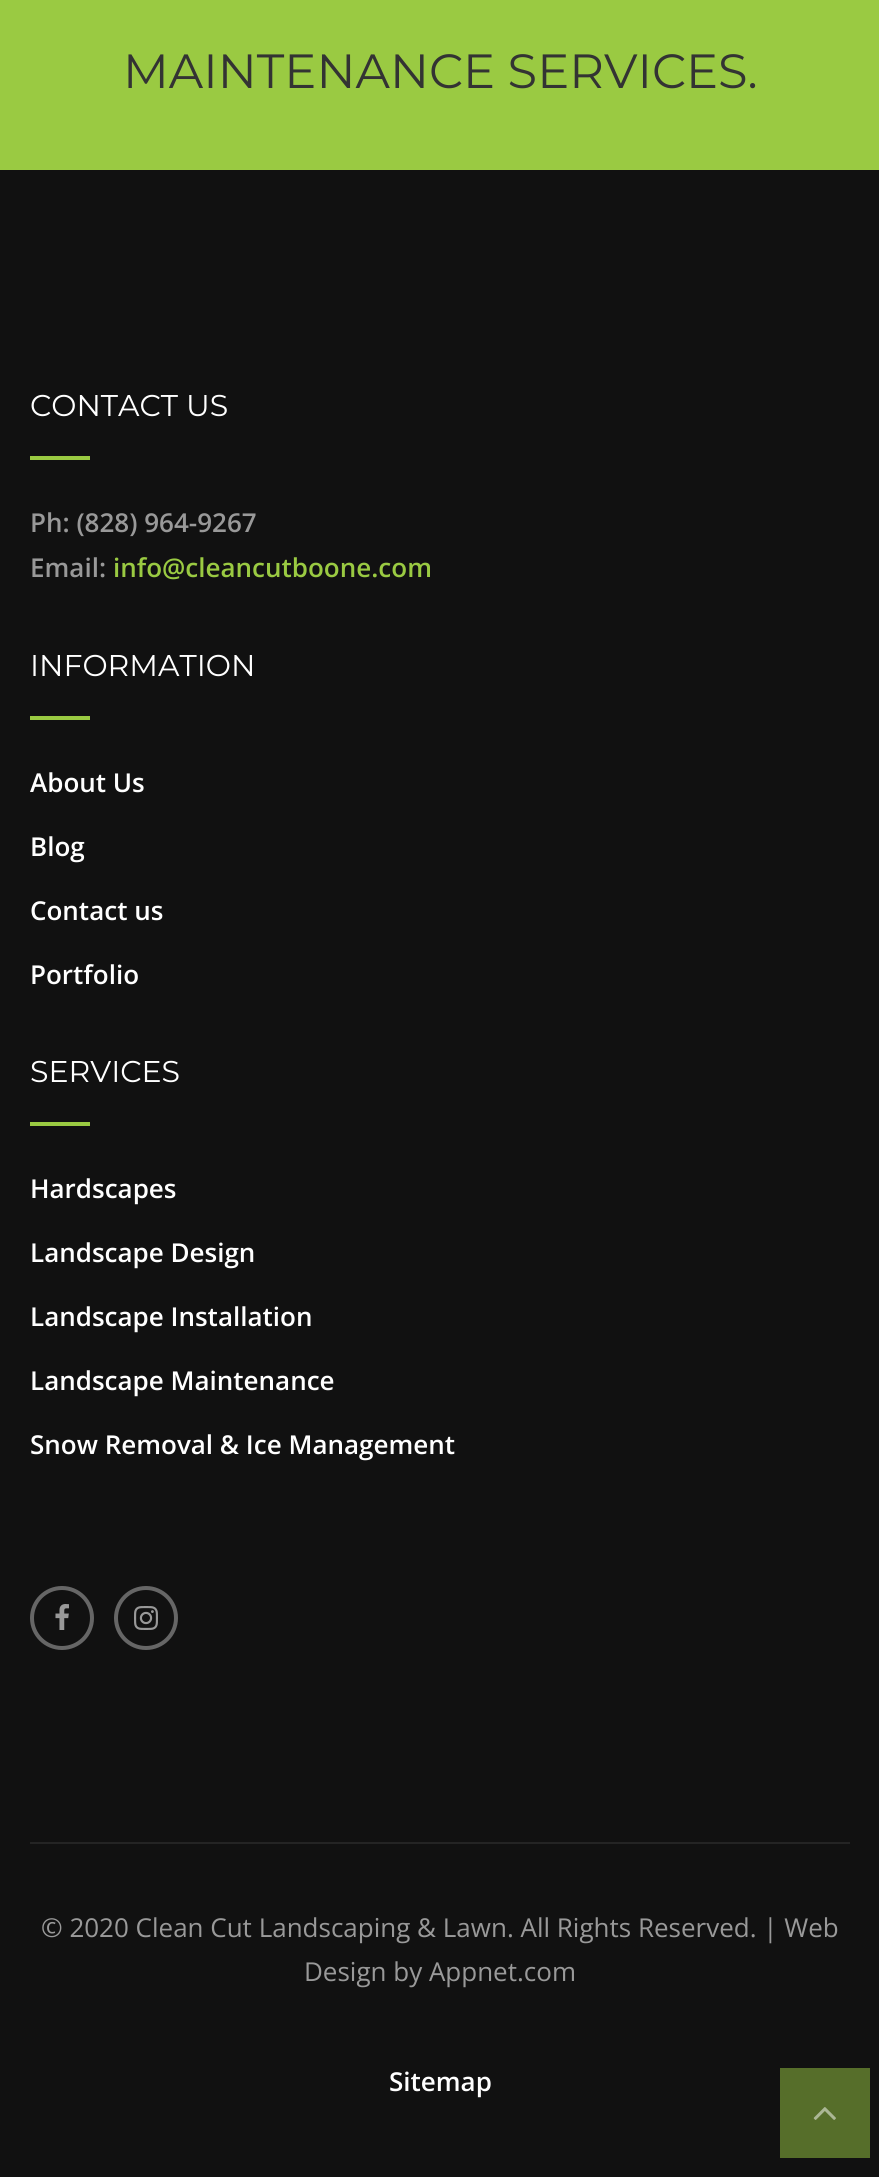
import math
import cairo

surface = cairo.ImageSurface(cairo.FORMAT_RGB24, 879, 2177)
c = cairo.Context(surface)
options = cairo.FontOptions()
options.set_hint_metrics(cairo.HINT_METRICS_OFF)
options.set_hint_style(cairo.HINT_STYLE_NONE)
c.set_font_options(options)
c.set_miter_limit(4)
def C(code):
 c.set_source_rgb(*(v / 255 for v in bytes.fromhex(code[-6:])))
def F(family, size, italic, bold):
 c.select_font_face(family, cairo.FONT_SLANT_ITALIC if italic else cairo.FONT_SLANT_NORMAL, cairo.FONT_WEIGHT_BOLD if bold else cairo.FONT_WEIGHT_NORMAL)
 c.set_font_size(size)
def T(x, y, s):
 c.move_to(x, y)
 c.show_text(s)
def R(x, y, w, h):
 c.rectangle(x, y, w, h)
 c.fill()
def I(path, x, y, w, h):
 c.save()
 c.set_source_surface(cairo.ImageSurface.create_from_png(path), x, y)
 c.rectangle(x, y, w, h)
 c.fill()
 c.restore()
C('111111')
c.paint()
C('9aca42')
R(0,0,879,170)
F('Montserrat',48,0,0)
C('333333')
T(123,88,'MAINTENANCE SERVICES.')
F('Montserrat',30,0,0)
C('ffffff')
T(30,416,'CONTACT US')
C('9aca42')
R(30,456,60,4)
F('Open Sans SemiBold',26,0,0)
C('999999')
T(30,532,'Ph: (828) 964-9267')
T(30,577,'Email:')
C('9aca42')
T(113,577,'info@cleancutboone.com')
F('Montserrat',30,0,0)
C('ffffff')
T(30,676,'INFORMATION')
C('9aca42')
R(30,716,60,4)
F('Open Sans SemiBold',26,0,0)
C('ffffff')
T(30,792,'About Us')
T(30,856,'Blog')
T(30,920,'Contact us')
T(30,984,'Portfolio')
F('Montserrat',30,0,0)
T(30,1082,'SERVICES')
C('9aca42')
R(30,1122,60,4)
F('Open Sans SemiBold',26,0,0)
C('ffffff')
T(30,1198,'Hardscapes')
T(30,1262,'Landscape Design')
T(30,1326,'Landscape Installation')
T(30,1390,'Landscape Maintenance')
T(30,1454,'Snow Removal & Ice Management')
c.new_path()
c.arc(62,1618,30,0,2 * math.pi)
C('666666')
c.set_line_width(4)
c.stroke()
I('1.png',55,1604,14,26)
c.arc(146,1618,30,0,2 * math.pi)
c.stroke()
I('2.png',134,1606,24,24)
C('242424')
R(30,1842,820,2)
F('Open Sans',26,0,0)
C('999999')
T(41,1937,'© 2020 Clean Cut Landscaping & Lawn. All Rights Reserved. | Web')
T(304,1981,'Design by Appnet.com')
F('Open Sans SemiBold',26,0,0)
C('ffffff')
T(389,2091,'Sitemap')
C('566e2a')
R(780,2068,90,90)
I('3.png',813,2107,23,13)
surface.write_to_png('o.png')
